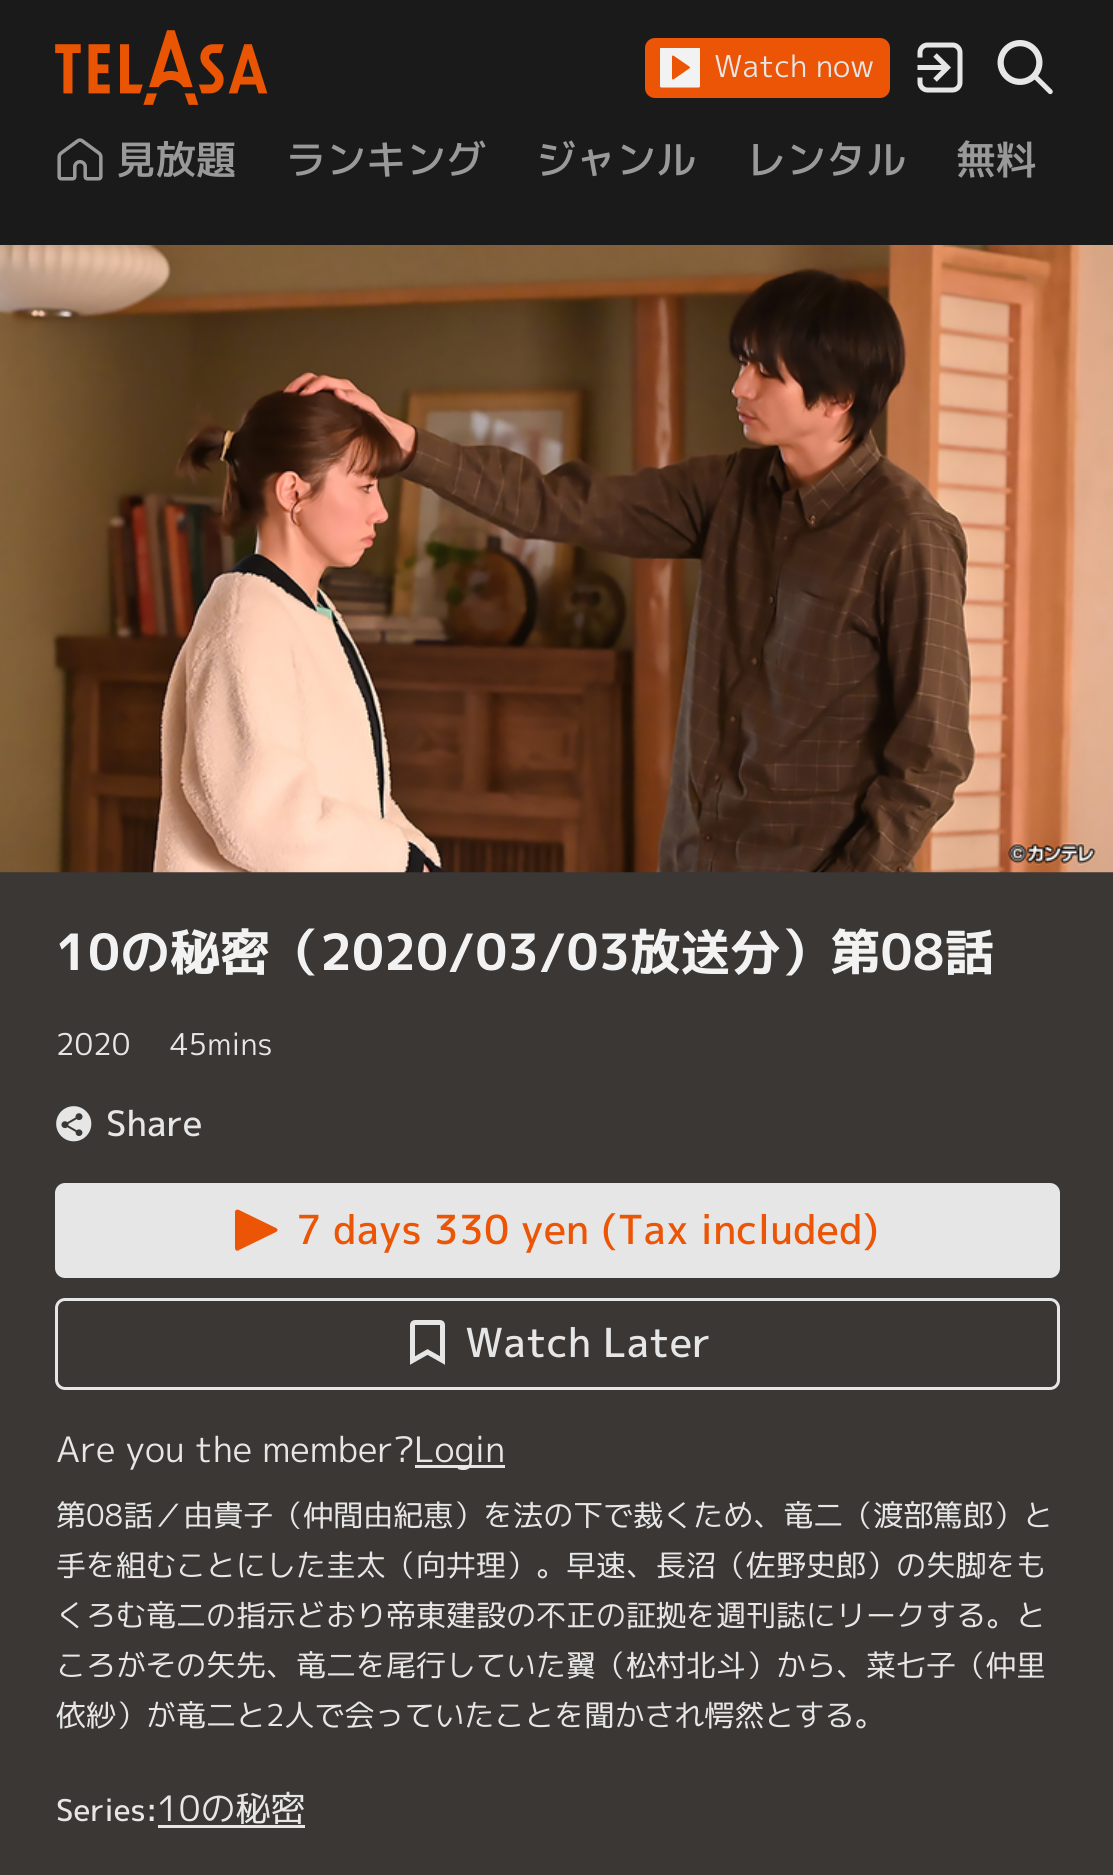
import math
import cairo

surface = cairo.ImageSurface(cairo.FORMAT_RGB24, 1113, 1875)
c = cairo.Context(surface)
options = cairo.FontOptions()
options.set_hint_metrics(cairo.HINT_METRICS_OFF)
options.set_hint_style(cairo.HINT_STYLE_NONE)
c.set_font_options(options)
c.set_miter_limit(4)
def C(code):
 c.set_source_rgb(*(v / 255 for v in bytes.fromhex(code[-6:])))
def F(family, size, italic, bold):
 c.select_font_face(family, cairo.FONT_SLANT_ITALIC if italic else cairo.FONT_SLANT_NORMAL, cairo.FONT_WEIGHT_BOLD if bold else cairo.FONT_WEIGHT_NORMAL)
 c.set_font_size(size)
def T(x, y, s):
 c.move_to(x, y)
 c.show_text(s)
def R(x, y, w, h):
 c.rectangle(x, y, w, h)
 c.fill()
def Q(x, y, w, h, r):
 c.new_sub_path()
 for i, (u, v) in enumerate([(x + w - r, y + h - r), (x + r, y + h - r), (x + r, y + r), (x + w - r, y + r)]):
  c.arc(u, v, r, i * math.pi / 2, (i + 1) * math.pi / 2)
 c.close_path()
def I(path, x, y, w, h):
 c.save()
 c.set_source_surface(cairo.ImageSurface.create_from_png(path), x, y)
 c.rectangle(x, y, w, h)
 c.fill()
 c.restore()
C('1a1a1a')
c.paint()
I('1.png',55,30,213,75)
C('eb5505')
Q(645,38,245,60,10)
c.fill()
I('2.png',660,48,40,40)
F('M PLUS 1p',30,0,0)
C('e6e6e6')
T(714,77,'Watch now')
I('3.png',917,42,46,51)
I('4.png',997,40,56,55)
I('5.png',57,138,46,43)
F('M PLUS 1p Medium',40,0,0)
C('999999')
T(116,174,'見放題')
T(286,174,'ランキング')
T(536,174,'ジャンル')
T(746,174,'レンタル')
T(956,174,'無料')
C('3a3735')
R(0,872,1113,1003)
I('6.png',0,245,1113,628)
F('M PLUS 1p',50,0,1)
C('f2f2f2')
T(56,970,'10の秘密（2020/03/03放送分）第08話')
F('M PLUS 1p',30,0,0)
C('e6e6e6')
T(56,1055,'2020')
T(170,1055,'45mins')
I('7.png',56,1106,36,36)
F('M PLUS 1p Medium',35,0,0)
T(106,1136,'Share')
Q(56.5,1184.5,1002,92,8.5)
c.fill_preserve()
c.set_line_width(3)
c.stroke()
C('eb5505')
c.set_fill_rule(cairo.FILL_RULE_EVEN_ODD)
c.new_path()
c.move_to(239,1210)
c.curve_to(237,1209,235,1210,235,1212)
c.line_to(235,1248)
c.curve_to(235,1250,237,1252,239,1250)
c.line_to(276,1232)
c.curve_to(278,1231,278,1229,276,1228)
c.close_path()
c.fill()
F('M PLUS 1p Medium',40,0,0)
T(296,1244,'7 days 330 yen (Tax included)')
Q(56.5,1299.5,1002,89,8.5)
C('e6e6e6')
c.stroke()
c.new_path()
c.move_to(412.5,1360.5)
c.line_to(427.5,1352)
c.line_to(442.5,1360.5)
c.line_to(442.5,1325)
c.curve_to(442.5,1323.5,441.5,1322.5,440,1322.5)
c.line_to(415,1322.5)
c.curve_to(413.5,1322.5,412.5,1323.5,412.5,1325)
c.close_path()
c.set_line_width(5)
c.stroke()
T(465,1357,'Watch Later')
F('M PLUS 1p',35,0,0)
T(56,1462,'Are you the member?')
R(415,1465,90,3)
T(414,1462,'Login')
F('M PLUS 1p',30,0,0)
T(56,1526,'第08話／由貴子（仲間由紀恵）を法の下で裁くため、竜二（渡部篤郎）と')
T(56,1576,'手を組むことにした圭太（向井理）。早速、長沼（佐野史郎）の失脚をも')
T(56,1626,'くろむ竜二の指示どおり帝東建設の不正の証拠を週刊誌にリークする。と')
T(56,1676,'ころがその矢先、竜二を尾行していた翼（松村北斗）から、菜七子（仲里')
T(56,1726,'依紗）が竜二と2人で会っていたことを聞かされ愕然とする。')
F('M PLUS 1p Medium',30,0,0)
T(56,1821,'Series:')
F('M PLUS 1p',35,0,0)
T(157,1821,'10の秘密')
R(158,1825,147,3)
surface.write_to_png('o.png')
